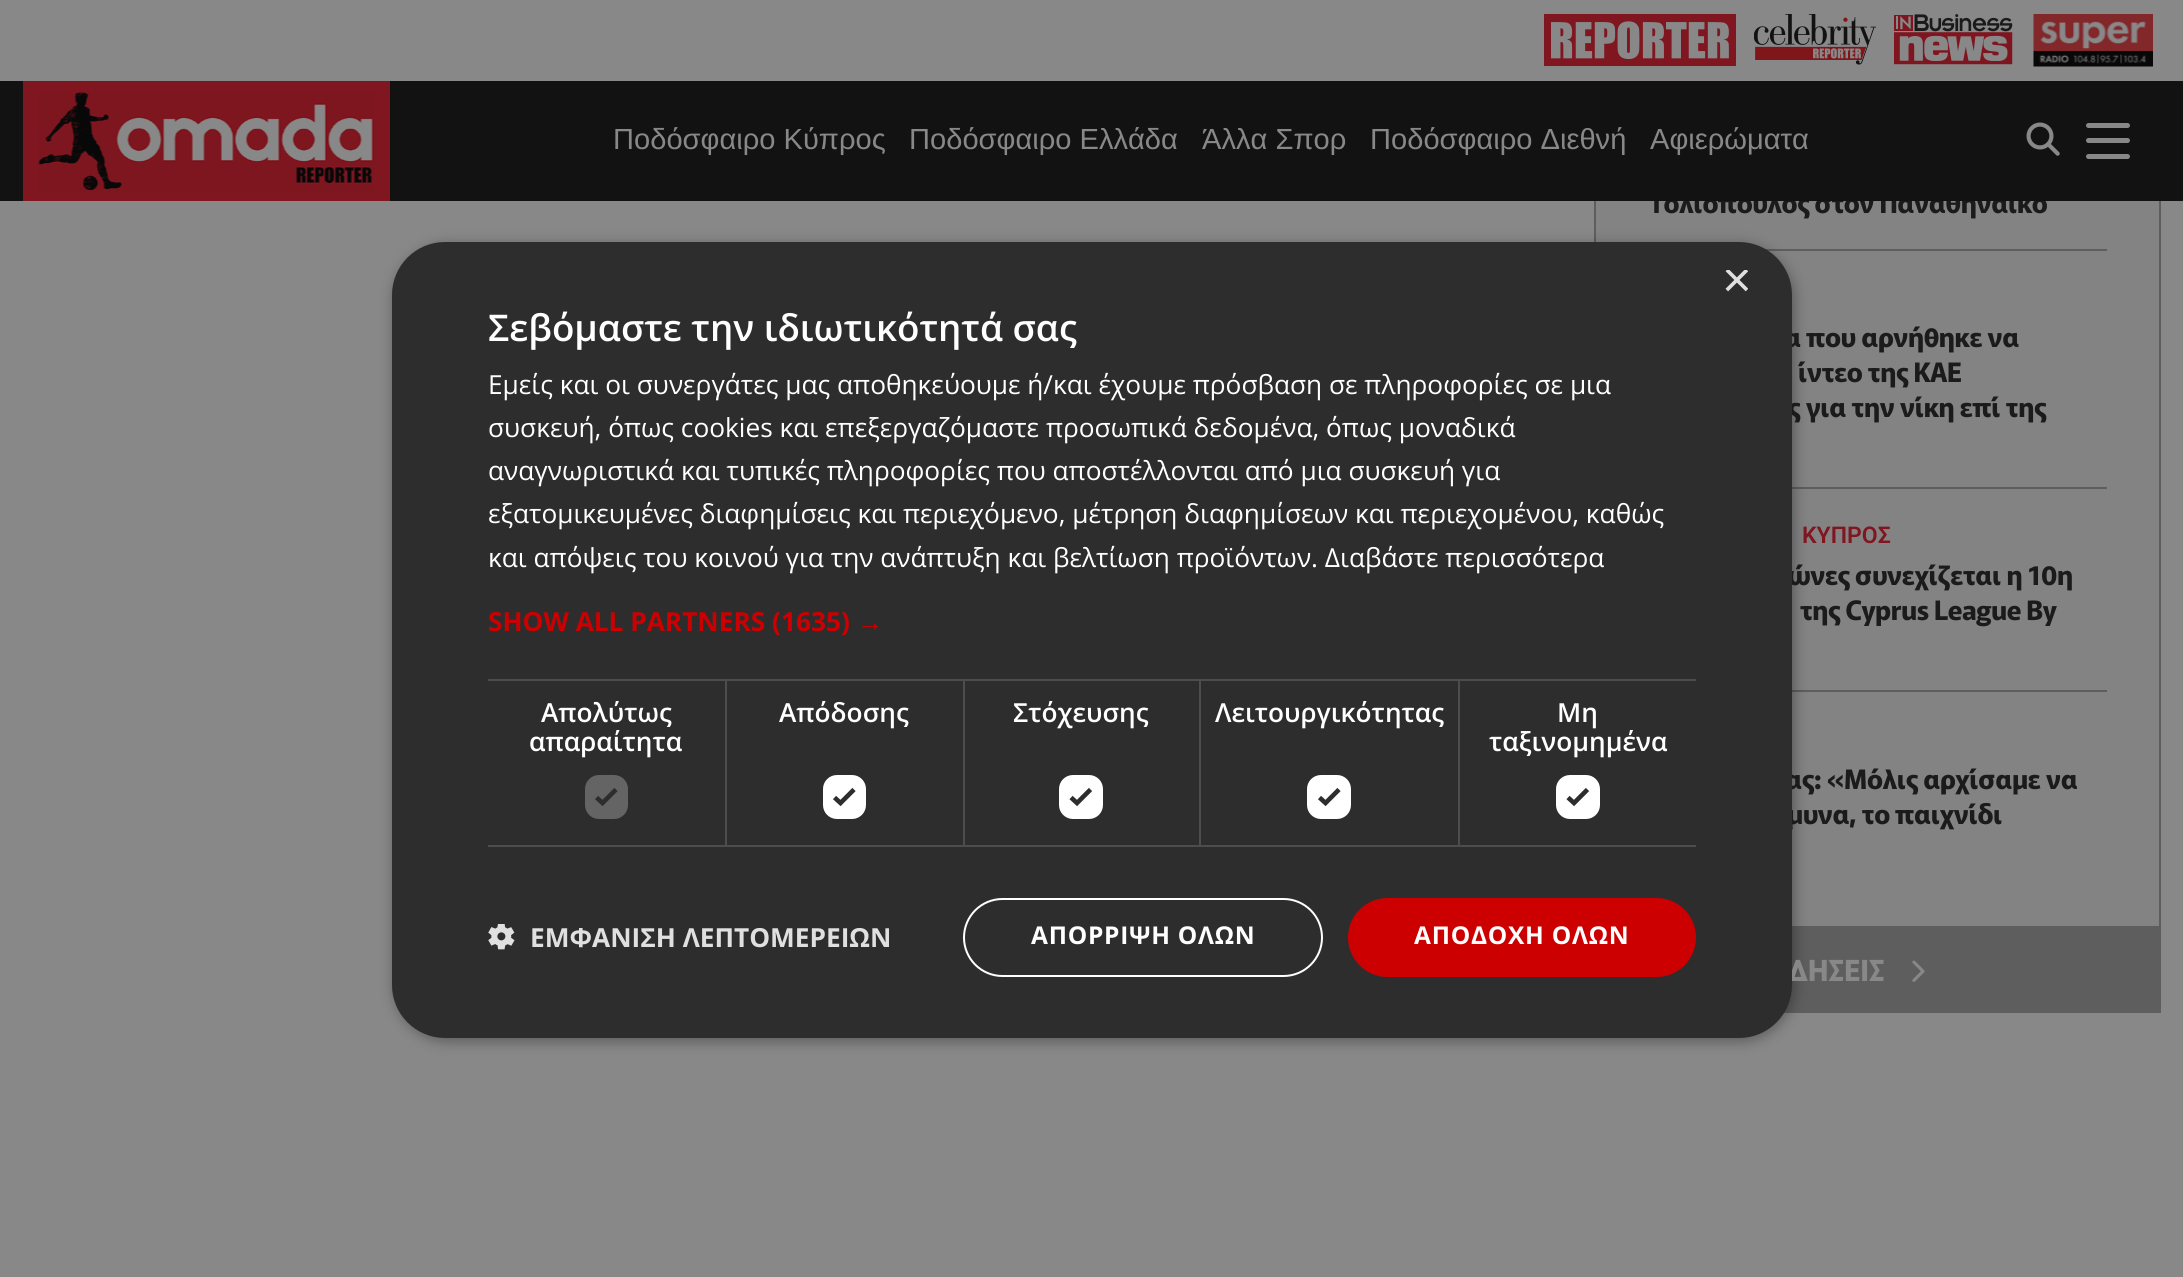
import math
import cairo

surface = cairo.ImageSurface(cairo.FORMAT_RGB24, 2183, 1277)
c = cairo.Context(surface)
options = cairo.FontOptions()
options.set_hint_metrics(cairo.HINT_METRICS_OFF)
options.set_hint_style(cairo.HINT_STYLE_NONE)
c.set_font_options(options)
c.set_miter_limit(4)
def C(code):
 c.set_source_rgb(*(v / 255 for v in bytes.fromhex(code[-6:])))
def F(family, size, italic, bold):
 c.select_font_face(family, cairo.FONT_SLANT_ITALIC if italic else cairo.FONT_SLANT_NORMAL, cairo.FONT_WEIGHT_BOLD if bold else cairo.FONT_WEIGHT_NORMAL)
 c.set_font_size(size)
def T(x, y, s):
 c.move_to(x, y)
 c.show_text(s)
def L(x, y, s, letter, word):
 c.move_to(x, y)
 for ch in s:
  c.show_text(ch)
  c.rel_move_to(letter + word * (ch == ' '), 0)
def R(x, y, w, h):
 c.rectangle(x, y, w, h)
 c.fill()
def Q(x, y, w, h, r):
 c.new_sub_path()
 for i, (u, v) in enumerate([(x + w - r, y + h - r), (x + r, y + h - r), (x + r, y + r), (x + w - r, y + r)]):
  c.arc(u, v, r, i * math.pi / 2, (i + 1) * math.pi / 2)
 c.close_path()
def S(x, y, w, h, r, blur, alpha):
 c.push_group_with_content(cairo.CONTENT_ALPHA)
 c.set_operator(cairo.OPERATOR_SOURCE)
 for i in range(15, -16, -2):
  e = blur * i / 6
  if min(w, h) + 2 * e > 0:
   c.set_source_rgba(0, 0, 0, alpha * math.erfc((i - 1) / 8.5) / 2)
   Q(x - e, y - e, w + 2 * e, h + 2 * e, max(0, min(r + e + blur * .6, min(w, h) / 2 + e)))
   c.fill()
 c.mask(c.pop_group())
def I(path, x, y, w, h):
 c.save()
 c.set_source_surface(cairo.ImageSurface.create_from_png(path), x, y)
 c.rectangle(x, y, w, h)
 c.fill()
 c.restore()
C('888888')
c.paint()
C('838383')
R(1596,201,563,725)
c.rectangle(1595,-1,565,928)
C('5e5e5e')
c.stroke()
F('Murecho',26.75,0,1)
C('1b1b1b')
L(1649,213,'Τολιόπουλος στον Παναθηναϊκό',-.5,0)
C('121212')
R(0,81,2183,120)
C('888888')
R(1594,0,567,81)
I('1.png',1544,14,192,52)
I('2.png',1754,14,122,51)
I('3.png',1894,14,119,51)
I('4.png',2033,14,120,53)
C('7f1620')
R(23,81,367,120)
I('5.png',38,91,336,101)
F('Liberation Sans',29.1,0,0)
C('888888')
T(613,149,'Ποδόσφαιρο Κύπρος')
T(909,149,'Ποδόσφαιρο Ελλάδα')
T(1202,149,'Άλλα Σπορ')
T(1370,149,'Ποδόσφαιρο Διεθνή')
T(1650,149,'Αφιερώματα')
I('6.png',2026,122,34,34)
Q(2086,123,44,5,2.5)
c.fill()
Q(2086,138,44,5,2.5)
c.fill()
Q(2086,154,44,5,2.5)
c.fill()
C('5e5e5e')
R(1765,249,342,2)
R(1792,487,315,2)
R(1792,690,315,2)
R(1784,928,377,85)
C('000000')
S(394,245,1400,796,53,7,.35)
F('Murecho',26.75,0,1)
C('1b1b1b')
L(1784,347,'α που αρνήθηκε να',-.5,0)
L(1788,417,'ς για την νίκη επί της',-.5,0)
L(1788,585,'ώνες συνεχίζεται η 10η',-.5,0)
L(1785,789,'ας: «Μόλις αρχίσαμε να',-.5,0)
L(1787,824,'μυνα, το παιχνίδι',-.5,0)
F('Murecho',29,0,1)
C('888888')
T(1788,981,'ΔΗΣΕΙΣ')
C('2d2d2d')
Q(392,242,1400,796,53)
c.fill()
c.save()
c.rectangle(1722,270,26,26)
c.clip()
F('Liberation Sans',51,0,0)
C('e0e0e0')
T(1722,297,'×')
c.restore()
F('Open Sans SemiBold',36.75,0,0)
C('ffffff')
T(488,341,'Σεβόμαστε την ιδιωτικότητά σας')
F('Open Sans',26.25,0,0)
T(488,394,'Εμείς και οι συνεργάτες μας αποθηκεύουμε ή/και έχουμε πρόσβαση σε πληροφορίες σε μια')
T(488,437,'συσκευή, όπως cookies και επεξεργαζόμαστε προσωπικά δεδομένα, όπως μοναδικά')
T(488,480,'αναγνωριστικά και τυπικές πληροφορίες που αποστέλλονται από μια συσκευή για')
T(488,523,'εξατομικευμένες διαφημίσεις και περιεχόμενο, μέτρηση διαφημίσεων και περιεχομένου, καθώς')
T(488,567,'και απόψεις του κοινού για την ανάπτυξη και βελτίωση προϊόντων. Διαβάστε περισσότερα')
F('Open Sans',26.25,0,1)
C('cc0000')
T(488,631,'SHOW ALL PARTNERS (1635)')
F('Liberation Sans',26.25,0,1)
T(857,631,'→')
C('4d4d4d')
R(488,679,238,2)
R(725,679,2,168)
R(488,845,238,2)
F('Open Sans SemiBold',26.25,0,0)
C('ffffff')
T(541,722,'Απολύτως')
T(529,751,'απαραίτητα')
C('646464')
Q(585,775,43,44,14)
c.fill()
c.new_path()
c.move_to(596.5,797.5)
c.line_to(602.5,803)
c.line_to(616,789.5)
C('2d2d2d')
c.set_line_width(4.6)
c.stroke()
C('4d4d4d')
R(726,679,238,2)
R(963,679,2,168)
R(726,845,238,2)
C('ffffff')
T(779,722,'Απόδοσης')
Q(825,777,39,40,12)
c.fill_preserve()
c.set_line_width(4)
c.stroke()
c.new_path()
c.move_to(834.5,797.5)
c.line_to(840.5,803)
c.line_to(854,789.5)
C('2d2d2d')
c.set_line_width(4.6)
c.stroke()
C('4d4d4d')
R(964,679,732,2)
R(1199,679,2,168)
R(964,845,237,2)
C('ffffff')
T(1013,722,'Στόχευσης')
Q(1061,777,40,40,12)
c.fill_preserve()
c.set_line_width(4)
c.stroke()
c.new_path()
c.move_to(1071,797.5)
c.line_to(1077,803)
c.line_to(1090.5,789.5)
C('2d2d2d')
c.set_line_width(4.6)
c.stroke()
C('4d4d4d')
R(1458,679,2,168)
R(1201,845,495,2)
C('ffffff')
T(1215,722,'Λειτουργικότητας')
Q(1309,777,40,40,12)
c.fill_preserve()
c.set_line_width(4)
c.stroke()
c.new_path()
c.move_to(1319.5,797.5)
c.line_to(1325.5,803)
c.line_to(1339,789.5)
C('2d2d2d')
c.set_line_width(4.6)
c.stroke()
C('ffffff')
T(1557,722,'Μη')
T(1489,751,'ταξινομημένα')
Q(1558,777,40,40,12)
c.fill_preserve()
c.set_line_width(4)
c.stroke()
c.new_path()
c.move_to(1568,797.5)
c.line_to(1574,803)
c.line_to(1587.5,789.5)
C('2d2d2d')
c.set_line_width(4.6)
c.stroke()
I('7.png',488,924,27,26)
F('Open Sans',26.25,0,1)
C('e0e0e0')
T(530,947,'ΕΜΦΑΝΙΣΗ ΛΕΠΤΟΜΕΡΕΙΩΝ')
Q(964,899,358,77,38.5)
C('ffffff')
c.set_line_width(2)
c.stroke()
F('Open Sans',24.5,0,1)
L(1031,944,'ΑΠΟΡΡΙΨΗ ΟΛΩΝ',.75,0)
C('cc0000')
Q(1348,898,348,79,39.5)
c.fill()
C('ffffff')
L(1414,944,'ΑΠΟΔΟΧΗ ΟΛΩΝ',.75,0)
F('Murecho',26.75,0,1)
C('1b1b1b')
L(1798,382,'ίντεο της ΚΑΕ',-.5,0)
F('Roboto SemiBold',23,0,0)
C('7f1620')
T(1802,543,'ΚΥΠΡΟΣ')
F('Murecho',26.75,0,1)
C('1b1b1b')
L(1800,620,'της Cyprus League By',-.5,0)
I('8.png',1912,960,13,22)
surface.write_to_png('o.png')
